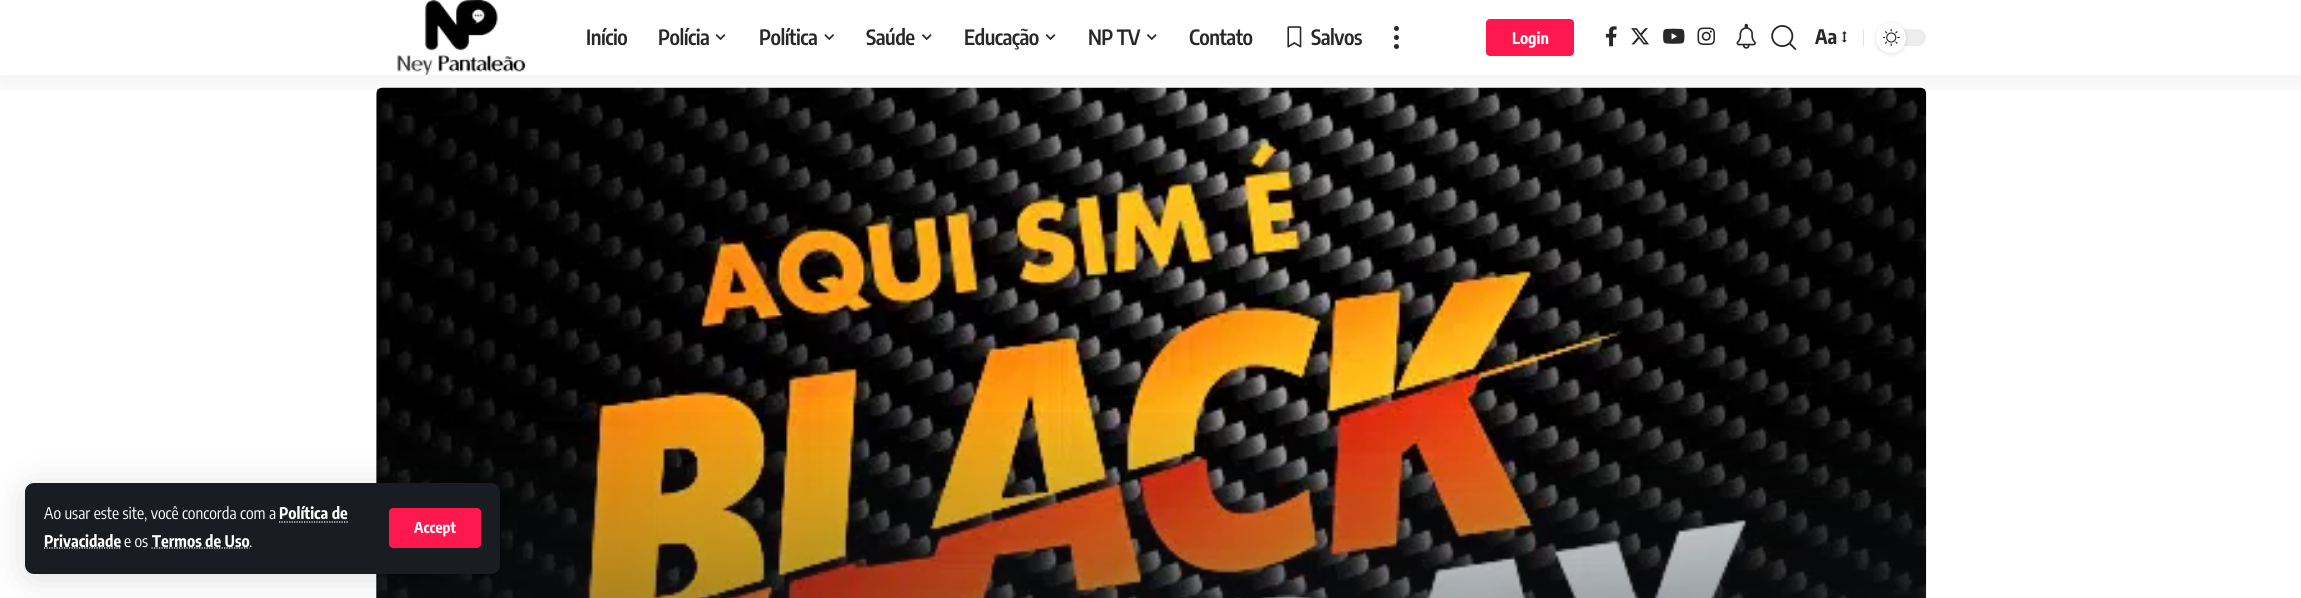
import math
import cairo

surface = cairo.ImageSurface(cairo.FORMAT_RGB24, 2301, 598)
c = cairo.Context(surface)
options = cairo.FontOptions()
options.set_hint_metrics(cairo.HINT_METRICS_OFF)
options.set_hint_style(cairo.HINT_STYLE_NONE)
c.set_font_options(options)
c.set_miter_limit(4)
def C(code):
 c.set_source_rgb(*(v / 255 for v in bytes.fromhex(code[-6:])))
def F(family, size, italic, bold):
 c.select_font_face(family, cairo.FONT_SLANT_ITALIC if italic else cairo.FONT_SLANT_NORMAL, cairo.FONT_WEIGHT_BOLD if bold else cairo.FONT_WEIGHT_NORMAL)
 c.set_font_size(size)
def T(x, y, s):
 c.move_to(x, y)
 c.show_text(s)
def L(x, y, s, letter, word):
 c.move_to(x, y)
 for ch in s:
  c.show_text(ch)
  c.rel_move_to(letter + word * (ch == ' '), 0)
def R(x, y, w, h):
 c.rectangle(x, y, w, h)
 c.fill()
def Q(x, y, w, h, r):
 c.new_sub_path()
 for i, (u, v) in enumerate([(x + w - r, y + h - r), (x + r, y + h - r), (x + r, y + r), (x + w - r, y + r)]):
  c.arc(u, v, r, i * math.pi / 2, (i + 1) * math.pi / 2)
 c.close_path()
def S(x, y, w, h, r, blur, alpha):
 c.push_group_with_content(cairo.CONTENT_ALPHA)
 c.set_operator(cairo.OPERATOR_SOURCE)
 for i in range(15, -16, -2):
  e = blur * i / 6
  if min(w, h) + 2 * e > 0:
   c.set_source_rgba(0, 0, 0, alpha * math.erfc((i - 1) / 8.5) / 2)
   Q(x - e, y - e, w + 2 * e, h + 2 * e, max(0, min(r + e + blur * .6, min(w, h) / 2 + e)))
   c.fill()
 c.mask(c.pop_group())
def I(path, x, y, w, h):
 c.save()
 c.set_source_surface(cairo.ImageSurface.create_from_png(path), x, y)
 c.rectangle(x, y, w, h)
 c.fill()
 c.restore()
C('ffffff')
c.paint()
I('14.png',376,87,1551,511)
c.save()
c.rectangle(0,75,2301,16)
c.clip()
C('000000')
S(0,5,2301,75,0,19,.07)
c.restore()
I('1.png',397,0,129,75)
F('Encode Sans Condensed SemiBold',21,0,0)
C('282828')
L(586,45,'Início',-.5,0)
L(658,45,'Polícia',-.5,0)
I('2.png',715,34,11,7)
L(759,45,'Política',-.5,0)
I('3.png',824,34,11,7)
L(866,45,'Saúde',-.5,0)
I('4.png',921,34,11,7)
L(964,45,'Educação',-.5,0)
I('2.png',1045,34,11,7)
L(1088,45,'NP TV',-.5,0)
I('4.png',1146,34,11,7)
L(1189,45,'Contato',-.5,0)
I('5.png',1287,26,15,22)
L(1311,45,'Salvos',-.5,0)
c.new_path()
c.arc(1396.5,28.5,2.5,0,2 * math.pi)
c.fill()
c.arc(1396.5,37.5,2.5,0,2 * math.pi)
c.fill()
c.arc(1396.5,46.5,2.5,0,2 * math.pi)
c.fill()
C('ff184e')
Q(1486,19,88,37,4)
c.fill()
F('Encode Sans Condensed',16,0,1)
C('ffffff')
T(1512,44,'Login')
I('6.png',1605,26,12,21)
I('7.png',1631,28,18,17)
I('8.png',1663,28,22,16)
I('9.png',1697,27,18,18)
I('10.png',1736,23,20,26)
I('11.png',1771,25,26,25)
F('Encode Sans Condensed',20,0,1)
C('282828')
T(1815,44,'Aa')
I('12.png',1842,31,5,12)
C('e4e4e4')
R(1863,29,1,17)
C('ededed')
Q(1876,29,50,17,8.5)
c.fill()
C('000000')
S(1876,24,30,30,15,2.5,.12)
C('ffffff')
c.arc(1891,38,15,0,2 * math.pi)
c.fill()
I('13.png',1883,29,17,17)
gradient = cairo.LinearGradient(1151,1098,1151,400)
gradient.add_color_stop_rgba(.2,0.098,0.11,0.125,1)
gradient.add_color_stop_rgba(1,0.098,0.11,0.125,0)
c.set_source(gradient)
R(376,412,1550,186)
C('000000')
S(25,488,475,91,9,19,.12)
C('191c20')
Q(25,483,475,91,9)
c.fill()
F('Encode Sans Condensed',16,0,0)
C('ffffff')
T(44,519,'Ao usar este site, você concorda com a')
F('Encode Sans Condensed',16,0,1)
T(279,519,'Política de')
c.new_path()
c.move_to(279,522)
c.line_to(348,522)
c.set_line_width(1.2)
c.set_dash([1.25,1.25])
c.stroke()
c.new_path()
c.move_to(44,548)
c.line_to(121,548)
c.stroke()
T(44,547,'Privacidade')
F('Encode Sans Condensed',16,0,0)
T(124,547,'e os')
c.new_path()
c.move_to(151.5,548)
c.line_to(249.5,548)
c.stroke()
F('Encode Sans Condensed',16,0,1)
T(152,547,'Termos de Uso')
F('Encode Sans Condensed',16,0,0)
T(249,547,'.')
C('ff184e')
Q(389,508,92,40,4)
c.fill()
F('Encode Sans Condensed',15,0,1)
C('ffffff')
T(414,533,'Accept')
surface.write_to_png('o.png')
